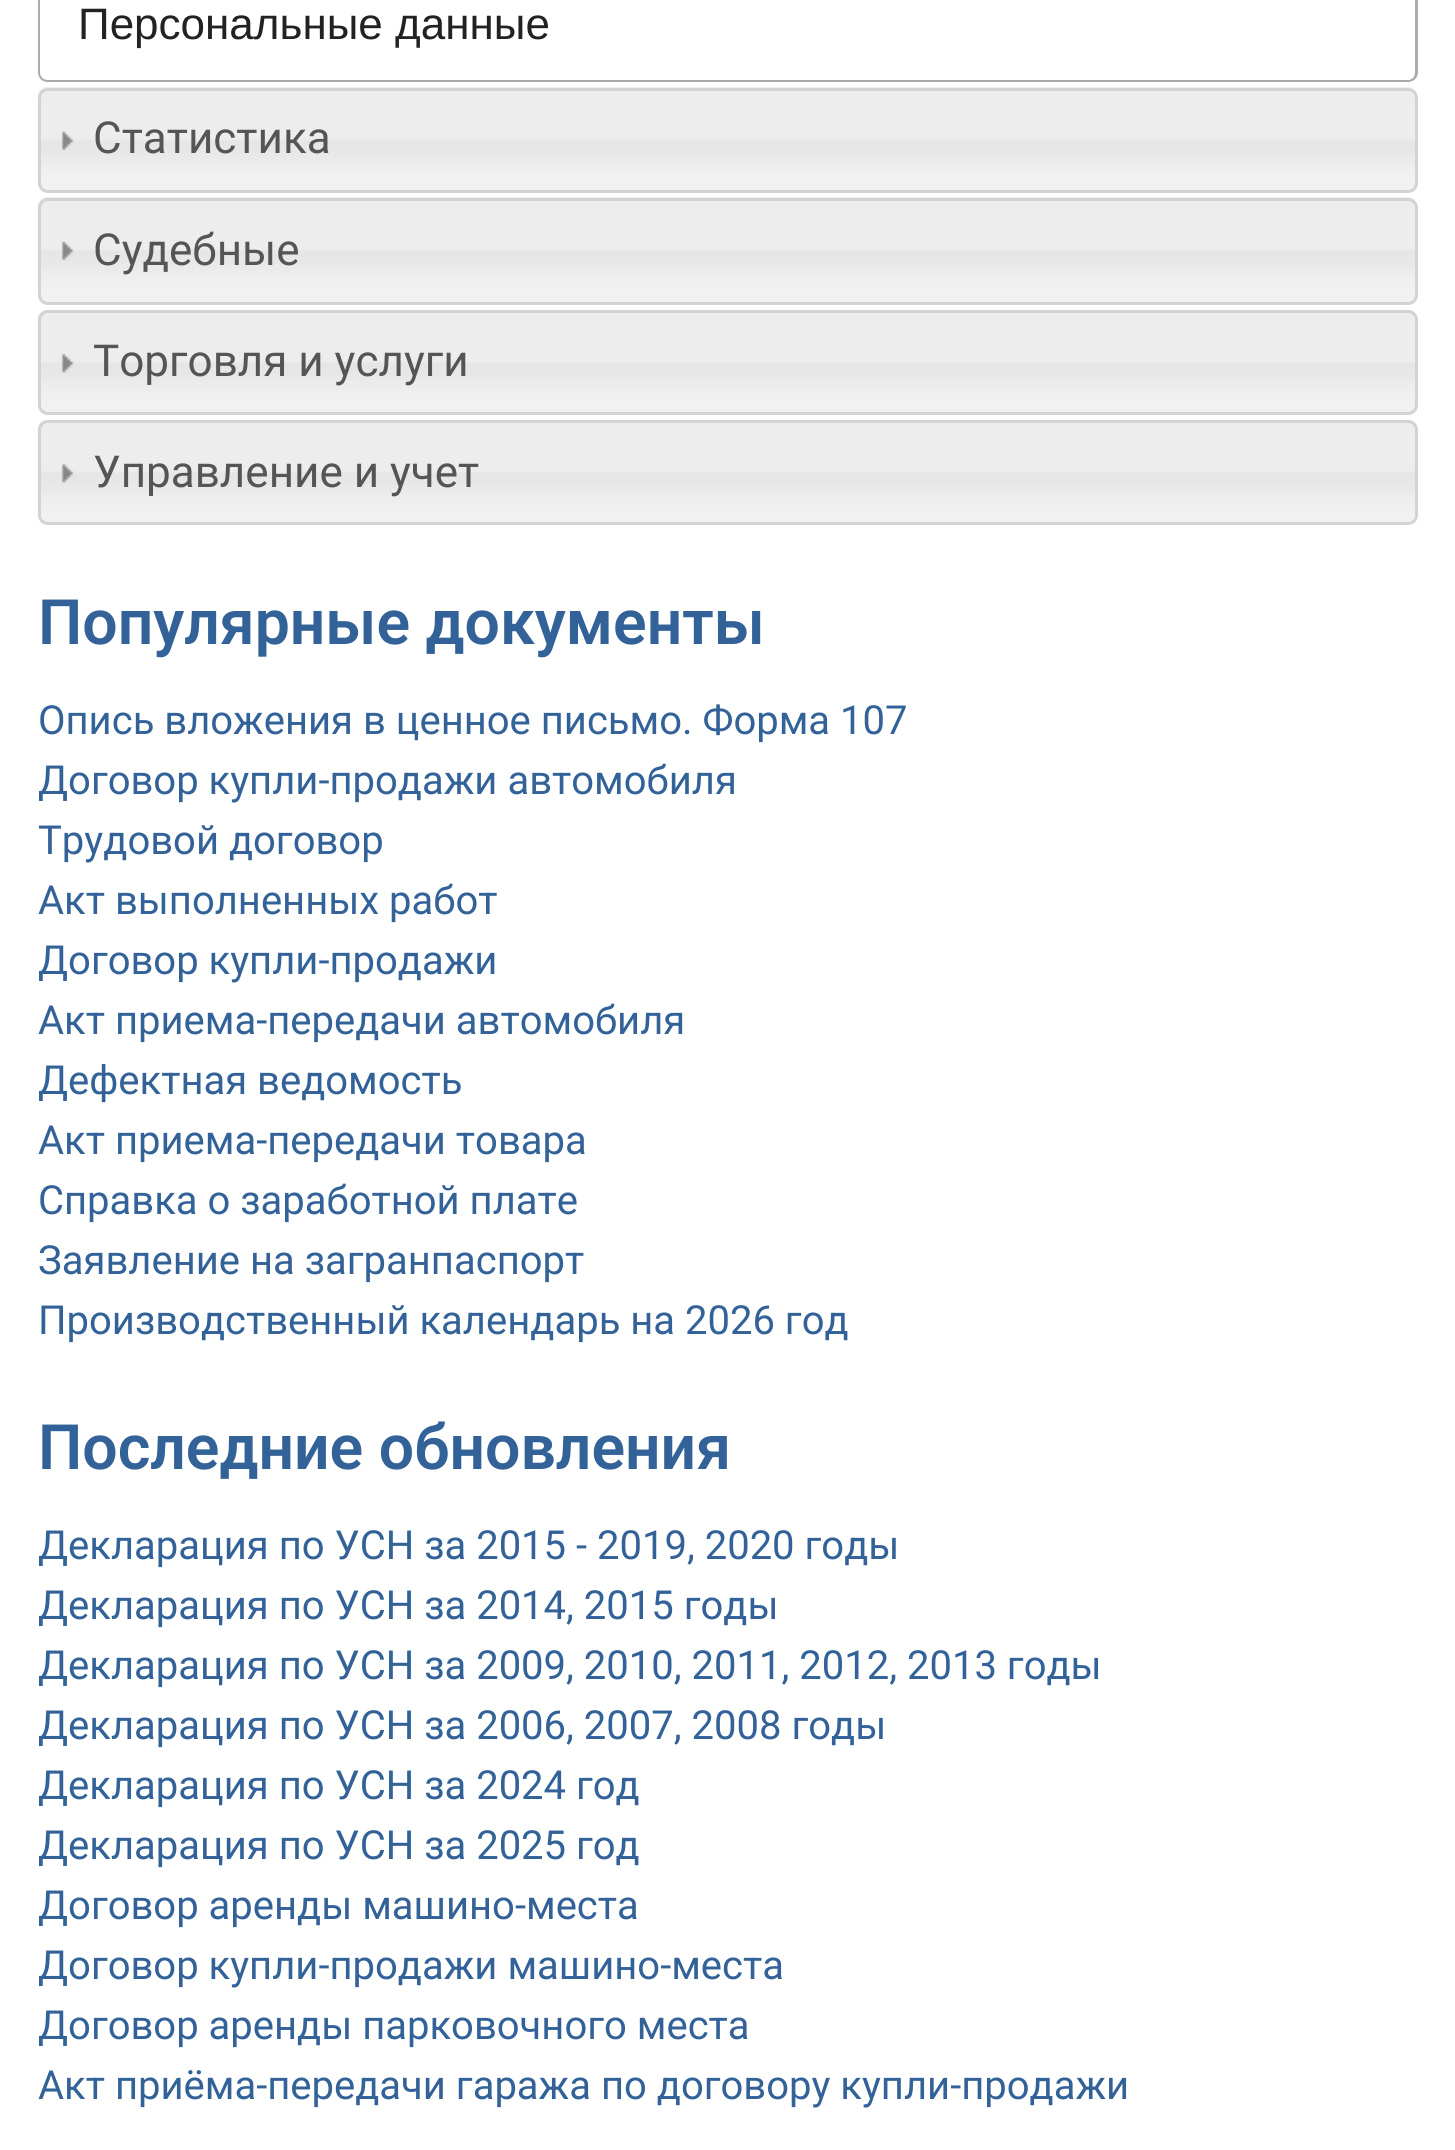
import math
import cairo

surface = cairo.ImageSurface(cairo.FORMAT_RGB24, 1455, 2150)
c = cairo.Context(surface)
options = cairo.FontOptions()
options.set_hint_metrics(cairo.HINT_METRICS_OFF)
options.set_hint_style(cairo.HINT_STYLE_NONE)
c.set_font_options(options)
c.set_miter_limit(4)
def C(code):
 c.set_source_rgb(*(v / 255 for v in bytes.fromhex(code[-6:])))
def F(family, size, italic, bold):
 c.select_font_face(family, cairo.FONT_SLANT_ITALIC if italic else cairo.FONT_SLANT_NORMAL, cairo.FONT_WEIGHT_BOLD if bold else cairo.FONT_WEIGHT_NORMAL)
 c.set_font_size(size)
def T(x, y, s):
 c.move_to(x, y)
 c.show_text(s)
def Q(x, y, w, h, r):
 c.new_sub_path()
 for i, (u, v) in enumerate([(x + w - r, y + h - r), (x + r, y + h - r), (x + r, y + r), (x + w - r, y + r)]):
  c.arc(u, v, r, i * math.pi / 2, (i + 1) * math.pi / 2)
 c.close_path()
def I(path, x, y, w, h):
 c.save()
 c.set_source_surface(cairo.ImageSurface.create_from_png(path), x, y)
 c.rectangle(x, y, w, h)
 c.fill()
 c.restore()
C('ffffff')
c.paint()
C('aaaaaa')
c.set_fill_rule(cairo.FILL_RULE_EVEN_ODD)
c.new_path()
c.move_to(38,-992)
c.line_to(1418,-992)
c.line_to(1418,72)
c.curve_to(1418,78,1413,82,1408,82)
c.line_to(48,82)
c.curve_to(42,82,38,78,38,72)
c.close_path()
c.move_to(40,-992)
c.line_to(1415,-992)
c.line_to(1415,72)
c.curve_to(1415,77,1412,80,1408,80)
c.line_to(48,80)
c.curve_to(43,80,40,77,40,72)
c.close_path()
c.fill()
F('Liberation Sans',44,0,0)
C('222222')
T(78,39,'Персональные данные')
I('1.png',37,87,1380,105)
Q(39.5,89.5,1377,102,8.5)
C('d3d3d3')
c.set_line_width(3)
c.stroke()
I('2.png',61,131,13,20)
F('Roboto',44,0,0)
C('555555')
T(93,153,'Статистика')
I('3.png',37,197,1380,107)
Q(39.5,199.5,1377,104,8.5)
C('d3d3d3')
c.stroke()
I('2.png',61,241,13,20)
C('555555')
T(93,265,'Судебные')
I('4.png',37,309,1380,105)
Q(39.5,311.5,1377,102,8.5)
C('d3d3d3')
c.stroke()
I('5.png',61,353,13,20)
C('555555')
T(93,376,'Торговля и услуги')
I('4.png',37,419,1380,105)
Q(39.5,421.5,1377,102,8.5)
C('d3d3d3')
c.stroke()
I('5.png',61,463,13,20)
C('555555')
T(93,487,'Управление и учет')
F('Roboto SemiBold',62.5,0,0)
C('336299')
T(38,644,'Популярные документы')
F('Roboto',40,0,0)
T(38,734,'Опись вложения в ценное письмо. Форма 107')
T(38,794,'Договор купли-продажи автомобиля')
T(38,854,'Трудовой договор')
T(38,914,'Акт выполненных работ')
T(38,974,'Договор купли-продажи')
T(38,1034,'Акт приема-передачи автомобиля')
T(38,1094,'Дефектная ведомость')
T(38,1154,'Акт приема-передачи товара')
T(38,1214,'Справка о заработной плате')
T(38,1274,'Заявление на загранпаспорт')
T(38,1334,'Производственный календарь на 2026 год')
F('Roboto SemiBold',62.5,0,0)
T(38,1469,'Последние обновления')
F('Roboto',40,0,0)
T(38,1559,'Декларация по УСН за 2015 - 2019, 2020 годы')
T(38,1619,'Декларация по УСН за 2014, 2015 годы')
T(38,1679,'Декларация по УСН за 2009, 2010, 2011, 2012, 2013 годы')
T(38,1739,'Декларация по УСН за 2006, 2007, 2008 годы')
T(38,1799,'Декларация по УСН за 2024 год')
T(38,1859,'Декларация по УСН за 2025 год')
T(38,1919,'Договор аренды машино-места')
T(38,1979,'Договор купли-продажи машино-места')
T(38,2039,'Договор аренды парковочного места')
T(38,2099,'Акт приёма-передачи гаража по договору купли-продажи')
surface.write_to_png('o.png')
